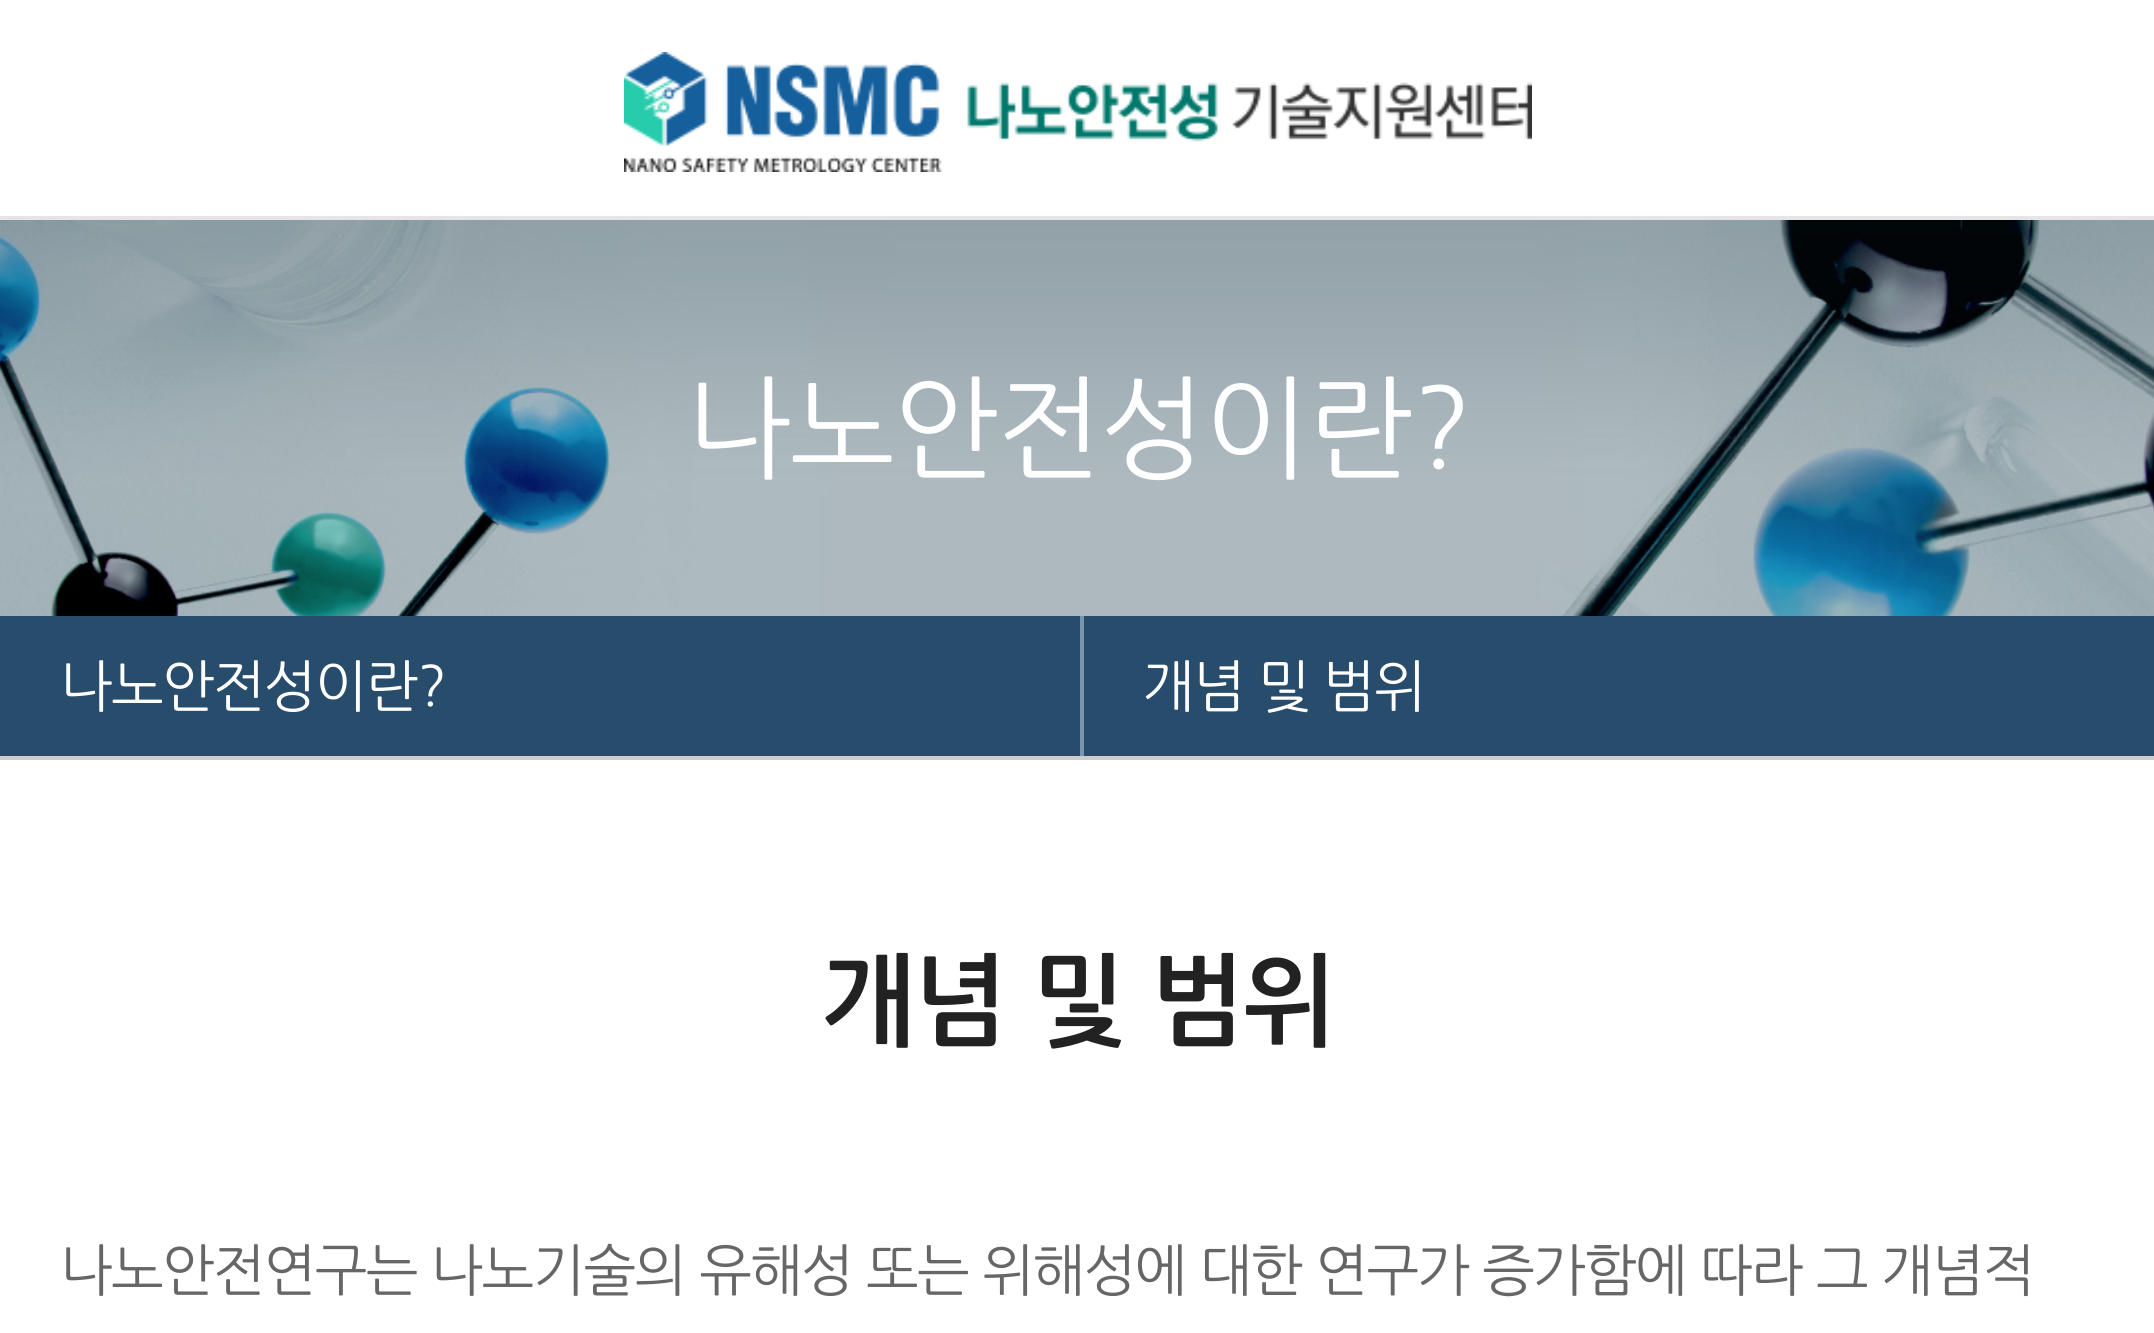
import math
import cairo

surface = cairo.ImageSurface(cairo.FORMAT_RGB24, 2154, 1333)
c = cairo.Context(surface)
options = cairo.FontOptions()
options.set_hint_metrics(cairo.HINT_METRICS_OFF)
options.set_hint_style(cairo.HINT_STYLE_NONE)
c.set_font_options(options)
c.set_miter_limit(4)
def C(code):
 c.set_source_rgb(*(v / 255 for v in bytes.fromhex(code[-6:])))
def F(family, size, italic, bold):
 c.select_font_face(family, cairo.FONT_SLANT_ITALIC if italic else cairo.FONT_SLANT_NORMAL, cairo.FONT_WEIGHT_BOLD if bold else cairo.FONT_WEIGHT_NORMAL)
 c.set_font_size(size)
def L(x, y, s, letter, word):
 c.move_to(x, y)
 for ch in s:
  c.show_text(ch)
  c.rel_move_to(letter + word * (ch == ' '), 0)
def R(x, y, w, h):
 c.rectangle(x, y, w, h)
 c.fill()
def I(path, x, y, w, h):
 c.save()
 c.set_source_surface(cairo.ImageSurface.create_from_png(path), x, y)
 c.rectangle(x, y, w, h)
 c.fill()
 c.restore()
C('ffffff')
c.paint()
C('e5e5e5')
R(0,216,2154,4)
I('1.png',624,52,908,120)
I('2.png',0,220,2154,396)
F('NanumGothic',112,0,0)
C('ffffff')
L(686,464,'나노안전성이란?',-1.7,0)
C('cccccc')
R(0,756,2154,4)
C('284c6b')
R(0,616,1080,140)
F('NanumGothic',56,0,0)
C('ffffff')
L(60,704,'나노안전성이란?',-1.7,0)
C('284c6b')
R(1084,616,1070,140)
C('7c95af')
R(1080,616,4,140)
C('ffffff')
L(1142,704,'개념 및 범위',-1.7,0)
F('NanumGothic',100,0,1)
C('222222')
L(821,1032,'개념 및 범위',-1.7,0)
F('NanumGothic',56,0,0)
C('666666')
L(60,1288,'나노안전연구는 나노기술의 유해성 또는 위해성에 대한 연구가 증가함에 따라 그 개념적',-1.7,0)
surface.write_to_png('o.png')
